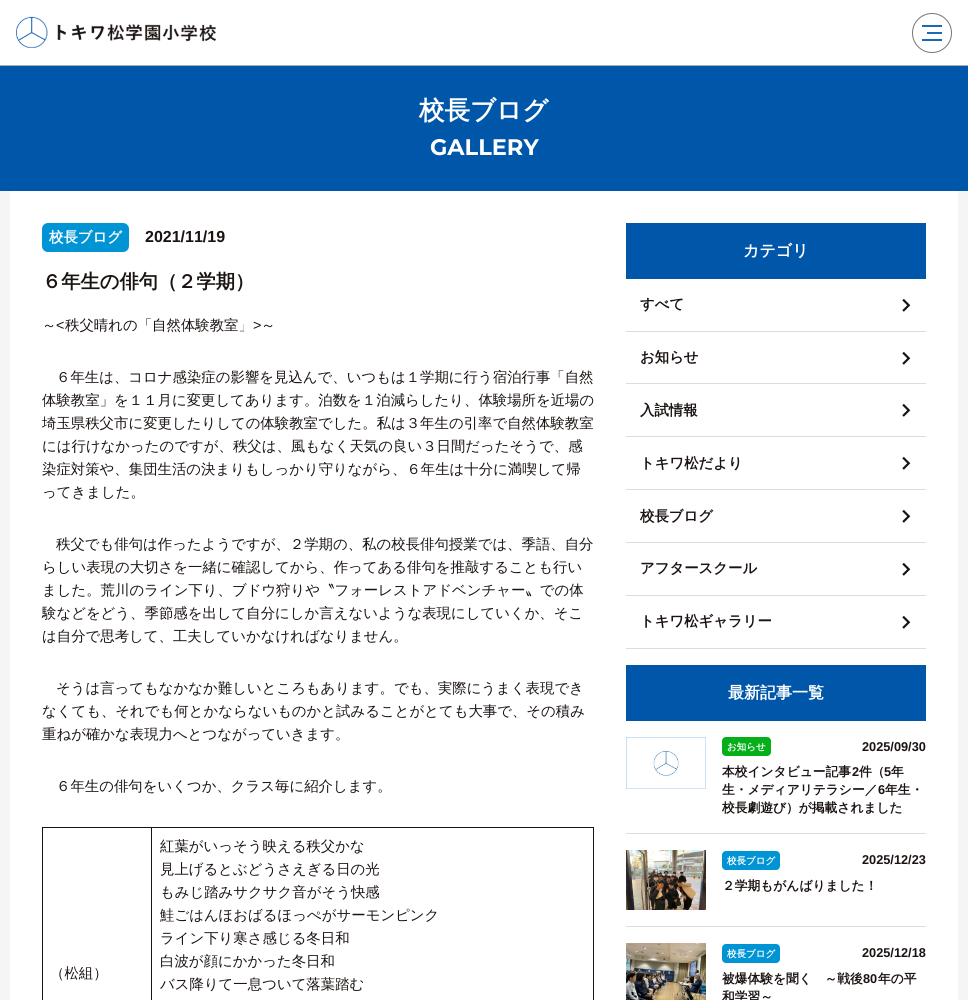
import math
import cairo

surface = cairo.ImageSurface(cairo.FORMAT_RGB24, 968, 1000)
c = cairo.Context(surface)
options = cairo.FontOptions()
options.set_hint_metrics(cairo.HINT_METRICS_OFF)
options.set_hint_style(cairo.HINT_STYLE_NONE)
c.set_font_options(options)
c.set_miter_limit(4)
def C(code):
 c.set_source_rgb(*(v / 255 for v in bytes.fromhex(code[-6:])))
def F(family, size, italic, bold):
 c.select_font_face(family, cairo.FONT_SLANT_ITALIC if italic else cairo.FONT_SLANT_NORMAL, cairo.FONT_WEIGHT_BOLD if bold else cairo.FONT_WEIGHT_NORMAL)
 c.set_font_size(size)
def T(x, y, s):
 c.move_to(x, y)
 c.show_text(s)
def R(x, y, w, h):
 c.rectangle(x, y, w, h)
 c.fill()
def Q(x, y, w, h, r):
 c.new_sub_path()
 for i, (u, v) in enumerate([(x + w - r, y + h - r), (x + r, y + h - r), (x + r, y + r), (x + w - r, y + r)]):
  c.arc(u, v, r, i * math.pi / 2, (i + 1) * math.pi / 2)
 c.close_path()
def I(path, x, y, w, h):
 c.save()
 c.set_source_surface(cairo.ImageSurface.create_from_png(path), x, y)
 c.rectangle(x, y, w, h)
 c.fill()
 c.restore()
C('f5f5f5')
c.paint()
C('ffffff')
R(0,0,968,65)
C('acacac')
R(0,65,968,1)
I('1.png',16,16,200,32)
c.arc(932,33,19.5,0,2 * math.pi)
C('767676')
c.set_line_width(1)
c.stroke()
C('1b69b3')
R(927,32,15,2)
R(922,25,20,2)
R(922,39,20,2)
C('0057aa')
R(0,66,968,125)
F('WenQuanYi Zen Hei',25.5,0,1)
C('ffffff')
T(419,119,'校長ブログ')
F('Montserrat',22.5,0,1)
T(430,155,'GALLERY')
R(10,191,948,809)
C('0194d5')
Q(42,223,87,29,6)
c.fill()
F('WenQuanYi Zen Hei',14.4,0,1)
C('ffffff')
T(49,242,'校長ブログ')
F('Liberation Sans',16,0,1)
C('1a1311')
T(145,242,'2021/11/19')
F('WenQuanYi Zen Hei',19.25,0,1)
T(42,288,'６年生の俳句（２学期）')
F('WenQuanYi Zen Hei Medium',14.4,0,0)
T(42,330,'～')
F('Liberation Sans',14.4,0,0)
T(56,330,'<')
F('WenQuanYi Zen Hei Medium',14.4,0,0)
T(65,330,'秩父晴れの「自然体験教室」')
F('Liberation Sans',14.4,0,0)
T(253,330,'>')
F('WenQuanYi Zen Hei Medium',14.4,0,0)
T(261,330,'～')
T(56,382,'６年生は、コロナ感染症の影響を見込んで、いつもは１学期に行う宿泊行事「自然')
T(42,405,'体験教室」を１１月に変更してあります。泊数を１泊減らしたり、体験場所を近場の')
T(42,428,'埼玉県秩父市に変更したりしての体験教室でした。私は３年生の引率で自然体験教室')
T(42,451,'には行けなかったのですが、秩父は、風もなく天気の良い３日間だったそうで、感')
T(42,474,'染症対策や、集団生活の決まりもしっかり守りながら、６年生は十分に満喫して帰')
T(42,497,'ってきました。')
T(56,549,'秩父でも俳句は作ったようですが、２学期の、私の校長俳句授業では、季語、自分')
T(42,572,'らしい表現の大切さを一緒に確認してから、作ってある俳句を推敲することも行い')
T(42,595,'ました。荒川のライン下り、ブドウ狩りや〝フォーレストアドベンチャー〟での体')
T(42,618,'験などをどう、季節感を出して自分にしか言えないような表現にしていくか、そこ')
T(42,641,'は自分で思考して、工夫していかなければなりません。')
T(56,693,'そうは言ってもなかなか難しいところもあります。でも、実際にうまく表現でき')
T(42,716,'なくても、それでも何とかならないものかと試みることがとても大事で、その積み')
T(42,739,'重ねが確かな表現力へとつながっていきます。')
T(56,791,'６年生の俳句をいくつか、クラス毎に紹介します。')
R(151,827,443,1)
R(151,827,1,173)
R(42,827,110,1)
R(42,827,1,173)
T(50,978,'（松組）')
R(593,827,1,173)
T(160,851,'紅葉がいっそう映える秩父かな')
T(160,874,'見上げるとぶどうさえぎる日の光')
T(160,897,'もみじ踏みサクサク音がそう快感')
T(160,920,'鮭ごはんほおばるほっぺがサーモンピンク')
T(160,943,'ライン下り寒さ感じる冬日和')
T(160,966,'白波が顔にかかった冬日和')
T(160,989,'バス降りて一息ついて落葉踏む')
C('0057aa')
R(626,223,300,56)
F('WenQuanYi Zen Hei',16,0,1)
C('ffffff')
T(743,256,'カテゴリ')
C('dddcdc')
R(626,331,300,1)
F('WenQuanYi Zen Hei',14.4,0,1)
C('1a1311')
T(640,309,'すべて')
I('2.png',902,298,9,14)
C('dddcdc')
R(626,383,300,1)
C('1a1311')
T(640,362,'お知らせ')
I('2.png',902,351,9,14)
C('dddcdc')
R(626,436,300,1)
C('1a1311')
T(640,415,'入試情報')
I('2.png',902,403,9,14)
C('dddcdc')
R(626,489,300,1)
C('1a1311')
T(640,468,'トキワ松だより')
I('2.png',902,456,9,14)
C('dddcdc')
R(626,542,300,1)
C('1a1311')
T(640,521,'校長ブログ')
I('2.png',902,509,9,14)
C('dddcdc')
R(626,595,300,1)
C('1a1311')
T(640,573,'アフタースクール')
I('2.png',902,562,9,14)
C('dddcdc')
R(626,648,300,1)
C('1a1311')
T(640,626,'トキワ松ギャラリー')
I('2.png',902,615,9,14)
C('0057aa')
R(626,665,300,56)
F('WenQuanYi Zen Hei',16,0,1)
C('ffffff')
T(728,698,'最新記事一覧')
C('dddcdc')
R(626,833,300,1)
I('3.png',626,737,80,52)
C('04af18')
Q(722,737,49,19,4)
c.fill()
F('WenQuanYi Zen Hei',9.5,0,1)
C('ffffff')
T(727,750,'お知らせ')
F('Liberation Sans',12.75,0,1)
C('1a1311')
T(862,751,'2025/09/30')
F('WenQuanYi Zen Hei',12.75,0,1)
T(722,776,'本校インタビュー記事')
F('Liberation Sans',12.75,0,1)
T(852,776,'2')
F('WenQuanYi Zen Hei',12.75,0,1)
T(859,776,'件（')
F('Liberation Sans',12.75,0,1)
T(884,776,'5')
F('WenQuanYi Zen Hei',12.75,0,1)
T(891,776,'年')
T(722,794,'生・メディアリテラシー／')
F('Liberation Sans',12.75,0,1)
T(878,794,'6')
F('WenQuanYi Zen Hei',12.75,0,1)
T(885,794,'年生・')
T(722,812,'校長劇遊び）が掲載されました')
C('dddcdc')
R(626,926,300,1)
I('4.png',626,850,80,60)
C('0194d5')
Q(722,851,58,19,4)
c.fill()
F('WenQuanYi Zen Hei',9.5,0,1)
C('ffffff')
T(727,864,'校長ブログ')
F('Liberation Sans',12.75,0,1)
C('1a1311')
T(862,864,'2025/12/23')
F('WenQuanYi Zen Hei',12.75,0,1)
T(722,890,'２学期もがんばりました！')
I('5.png',626,943,80,57)
C('0194d5')
Q(722,944,58,19,4)
c.fill()
F('WenQuanYi Zen Hei',9.5,0,1)
C('ffffff')
T(727,957,'校長ブログ')
F('Liberation Sans',12.75,0,1)
C('1a1311')
T(862,957,'2025/12/18')
F('WenQuanYi Zen Hei',12.75,0,1)
T(722,983,'被爆体験を聞く　～戦後')
F('Liberation Sans',12.75,0,1)
T(863,983,'80')
F('WenQuanYi Zen Hei',12.75,0,1)
T(878,983,'年の平')
T(722,1001,'和学習～')
surface.write_to_png('o.png')
